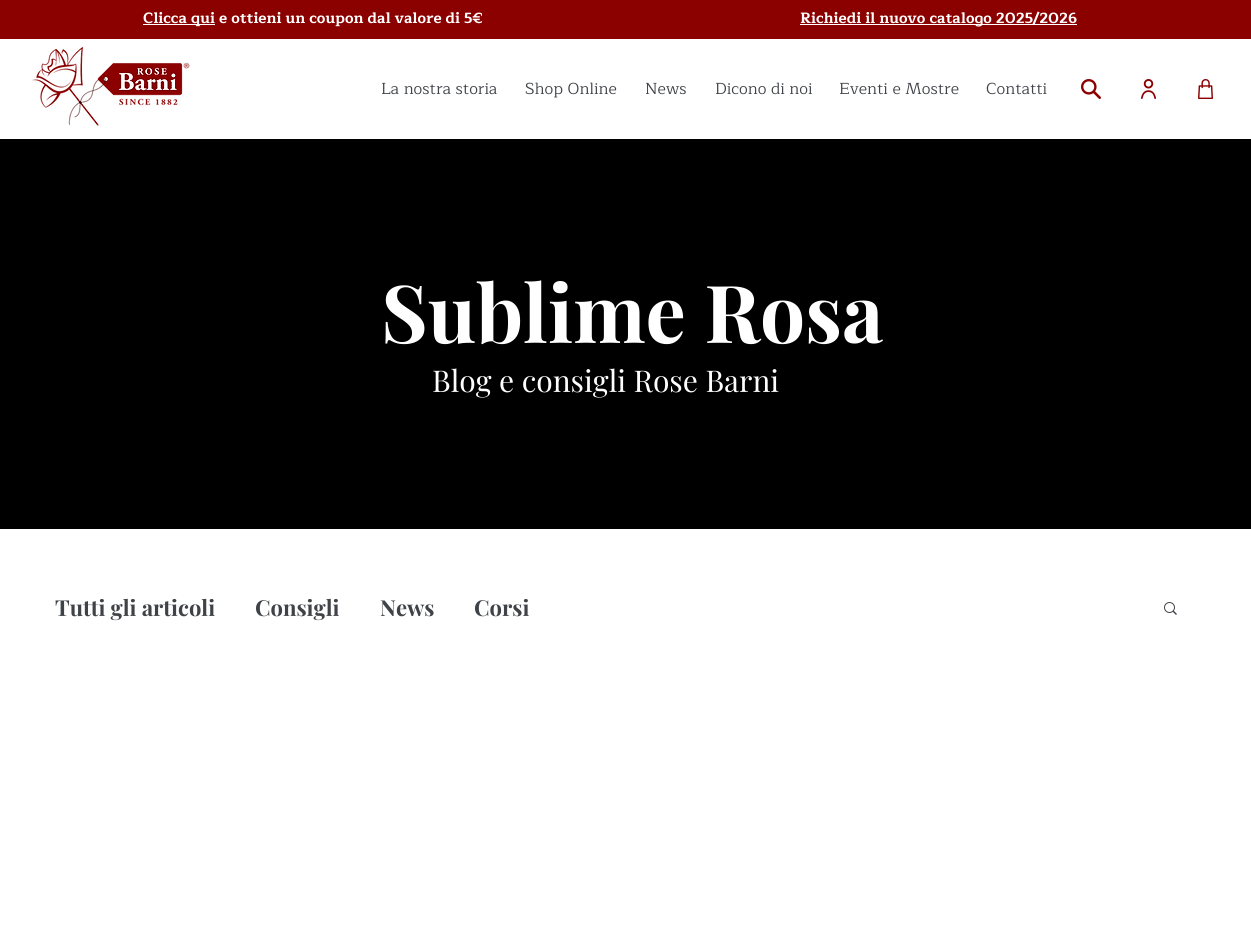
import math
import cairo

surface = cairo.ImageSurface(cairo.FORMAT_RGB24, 1251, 947)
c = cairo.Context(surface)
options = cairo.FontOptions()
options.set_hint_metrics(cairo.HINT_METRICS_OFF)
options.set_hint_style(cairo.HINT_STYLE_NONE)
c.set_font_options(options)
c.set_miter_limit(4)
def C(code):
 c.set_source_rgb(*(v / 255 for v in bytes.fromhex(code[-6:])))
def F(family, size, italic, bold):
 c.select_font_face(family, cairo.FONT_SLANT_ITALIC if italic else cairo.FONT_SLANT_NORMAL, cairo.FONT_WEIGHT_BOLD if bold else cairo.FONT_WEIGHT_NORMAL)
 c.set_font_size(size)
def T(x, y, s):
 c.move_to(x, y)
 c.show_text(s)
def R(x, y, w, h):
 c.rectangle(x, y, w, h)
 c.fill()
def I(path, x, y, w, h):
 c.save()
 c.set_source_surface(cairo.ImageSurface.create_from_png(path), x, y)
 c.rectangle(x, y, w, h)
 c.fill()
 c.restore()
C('ffffff')
c.paint()
C('8b0100')
R(0,0,1251,39)
C('ffffff')
R(143,24,72,1)
F('Maitree',15,0,1)
T(143,23,'Clicca qui e ottieni un coupon dal valore di 5€')
R(800,24,277,1)
T(800,23,'Richiedi il nuovo catalogo 2025/2026')
I('1.png',32,46,158,80)
F('Maitree',16,0,0)
C('3f4247')
T(381,94,'La nostra storia')
T(525,94,'Shop Online')
T(645,94,'News')
T(715,94,'Dicono di noi')
T(839,94,'Eventi e Mostre')
T(986,94,'Contatti')
I('2.png',1081,79,20,20)
I('3.png',1141,79,15,20)
I('4.png',1198,79,15,20)
C('000000')
R(0,139,1251,390)
F('Playfair Display',80,0,1)
C('ffffff')
T(381,343,'Sublime Rosa')
F('Playfair Display',30,0,0)
T(432,392,'Blog e consigli Rose Barni')
F('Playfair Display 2',22,0,1)
C('3f4247')
T(55,616,'Tutti gli articoli')
T(255,616,'Consigli')
T(380,616,'News')
T(474,616,'Corsi')
I('5.png',1164,602,13,13)
surface.write_to_png('o.png')
